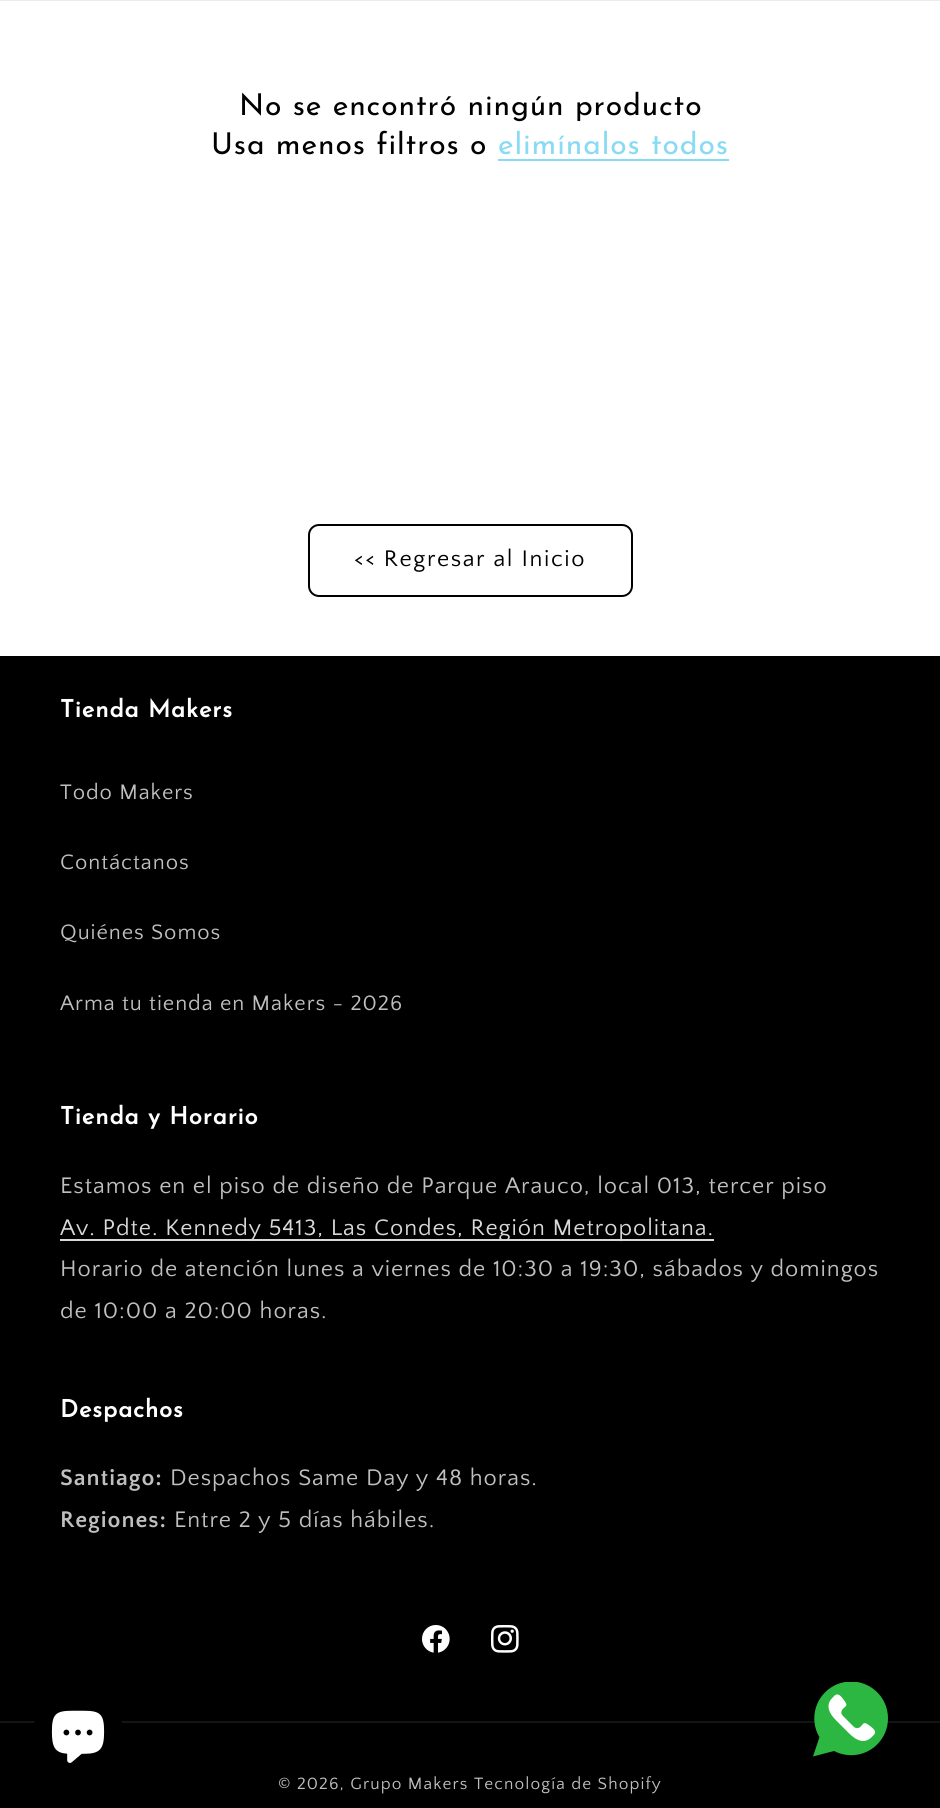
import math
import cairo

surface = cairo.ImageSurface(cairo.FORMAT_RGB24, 940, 1808)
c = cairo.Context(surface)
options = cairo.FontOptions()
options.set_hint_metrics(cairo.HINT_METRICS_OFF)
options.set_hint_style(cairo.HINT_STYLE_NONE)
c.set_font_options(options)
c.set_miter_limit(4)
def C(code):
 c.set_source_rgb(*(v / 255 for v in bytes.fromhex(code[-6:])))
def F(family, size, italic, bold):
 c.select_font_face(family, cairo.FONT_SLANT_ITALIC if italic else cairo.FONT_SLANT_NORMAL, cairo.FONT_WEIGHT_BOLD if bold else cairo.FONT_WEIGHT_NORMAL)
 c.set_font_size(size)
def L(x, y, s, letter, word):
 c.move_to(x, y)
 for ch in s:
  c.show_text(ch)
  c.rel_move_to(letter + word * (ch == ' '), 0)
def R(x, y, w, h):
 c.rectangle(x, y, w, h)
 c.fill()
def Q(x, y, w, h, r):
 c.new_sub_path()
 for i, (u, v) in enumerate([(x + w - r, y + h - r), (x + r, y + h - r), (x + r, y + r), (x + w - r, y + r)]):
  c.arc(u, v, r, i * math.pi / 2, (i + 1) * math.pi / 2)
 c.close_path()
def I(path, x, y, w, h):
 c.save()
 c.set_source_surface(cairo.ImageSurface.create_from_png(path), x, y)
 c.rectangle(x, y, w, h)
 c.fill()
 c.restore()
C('ffffff')
c.paint()
C('ebebeb')
R(0,0,940,1)
F('Josefin Sans',30,0,0)
C('000000')
L(239,115,'No se encontró ningún producto',.9,0)
L(211,154,'Usa menos filtros o',.9,0)
C('88daf5')
L(498,154,'elimínalos todos',.9,0)
R(498,159,231,2)
Q(309,525,323,71,10)
C('000000')
c.stroke()
F('Quattrocento Sans',23.6,0,0)
L(354,566,'<< Regresar al Inicio',1.6,0)
R(0,656,940,1152)
F('Josefin Sans',24,0,1)
C('ffffff')
L(60,717,'Tienda Makers',.9,0)
F('Quattrocento Sans',22,0,0)
C('bfbfbf')
L(60,799,'Todo Makers',.95,0)
L(60,869,'Contáctanos',.95,0)
L(60,939,'Quiénes Somos',.95,0)
L(60,1010,'Arma tu tienda en Makers - 2026',.95,0)
F('Josefin Sans',24,0,1)
C('ffffff')
L(60,1124,'Tienda y Horario',.9,0)
F('Quattrocento Sans',23.6,0,0)
C('bfbfbf')
L(60,1193,'Estamos en el piso de diseño de Parque Arauco, local 013, tercer piso',.95,0)
C('d9d9d9')
R(60,1239,654,2)
L(60,1235,'Av. Pdte. Kennedy 5413, Las Condes, Región Metropolitana.',.95,0)
C('bfbfbf')
L(60,1276,'Horario de atención lunes a viernes de 10:30 a 19:30, sábados y domingos',.95,0)
L(60,1318,'de 10:00 a 20:00 horas.',.95,0)
F('Josefin Sans',24,0,1)
C('ffffff')
L(60,1417,'Despachos',.9,0)
F('Quattrocento Sans',23.6,0,1)
C('bfbfbf')
L(60,1485,'Santiago:',.95,0)
F('Quattrocento Sans',23.6,0,0)
L(170,1485,'Despachos Same Day y 48 horas.',.95,0)
F('Quattrocento Sans',23.6,0,1)
L(60,1527,'Regiones:',.95,0)
F('Quattrocento Sans',23.6,0,0)
L(174,1527,'Entre 2 y 5 días hábiles.',.95,0)
I('1.png',422,1625,28,28)
I('2.png',490,1625,29,28)
C('141414')
R(0,1721,940,2)
F('Quattrocento Sans',17.25,0,0)
C('bfbfbf')
L(278,1789,'© 2026, Grupo Makers',1.1,0)
L(474,1789,'Tecnología de Shopify',1.1,0)
C('000000')
c.new_path()
c.arc(78,1733,45,0,2 * math.pi)
c.fill()
I('3.png',51,1710,54,53)
I('4.png',813,1682,75,75)
surface.write_to_png('o.png')
